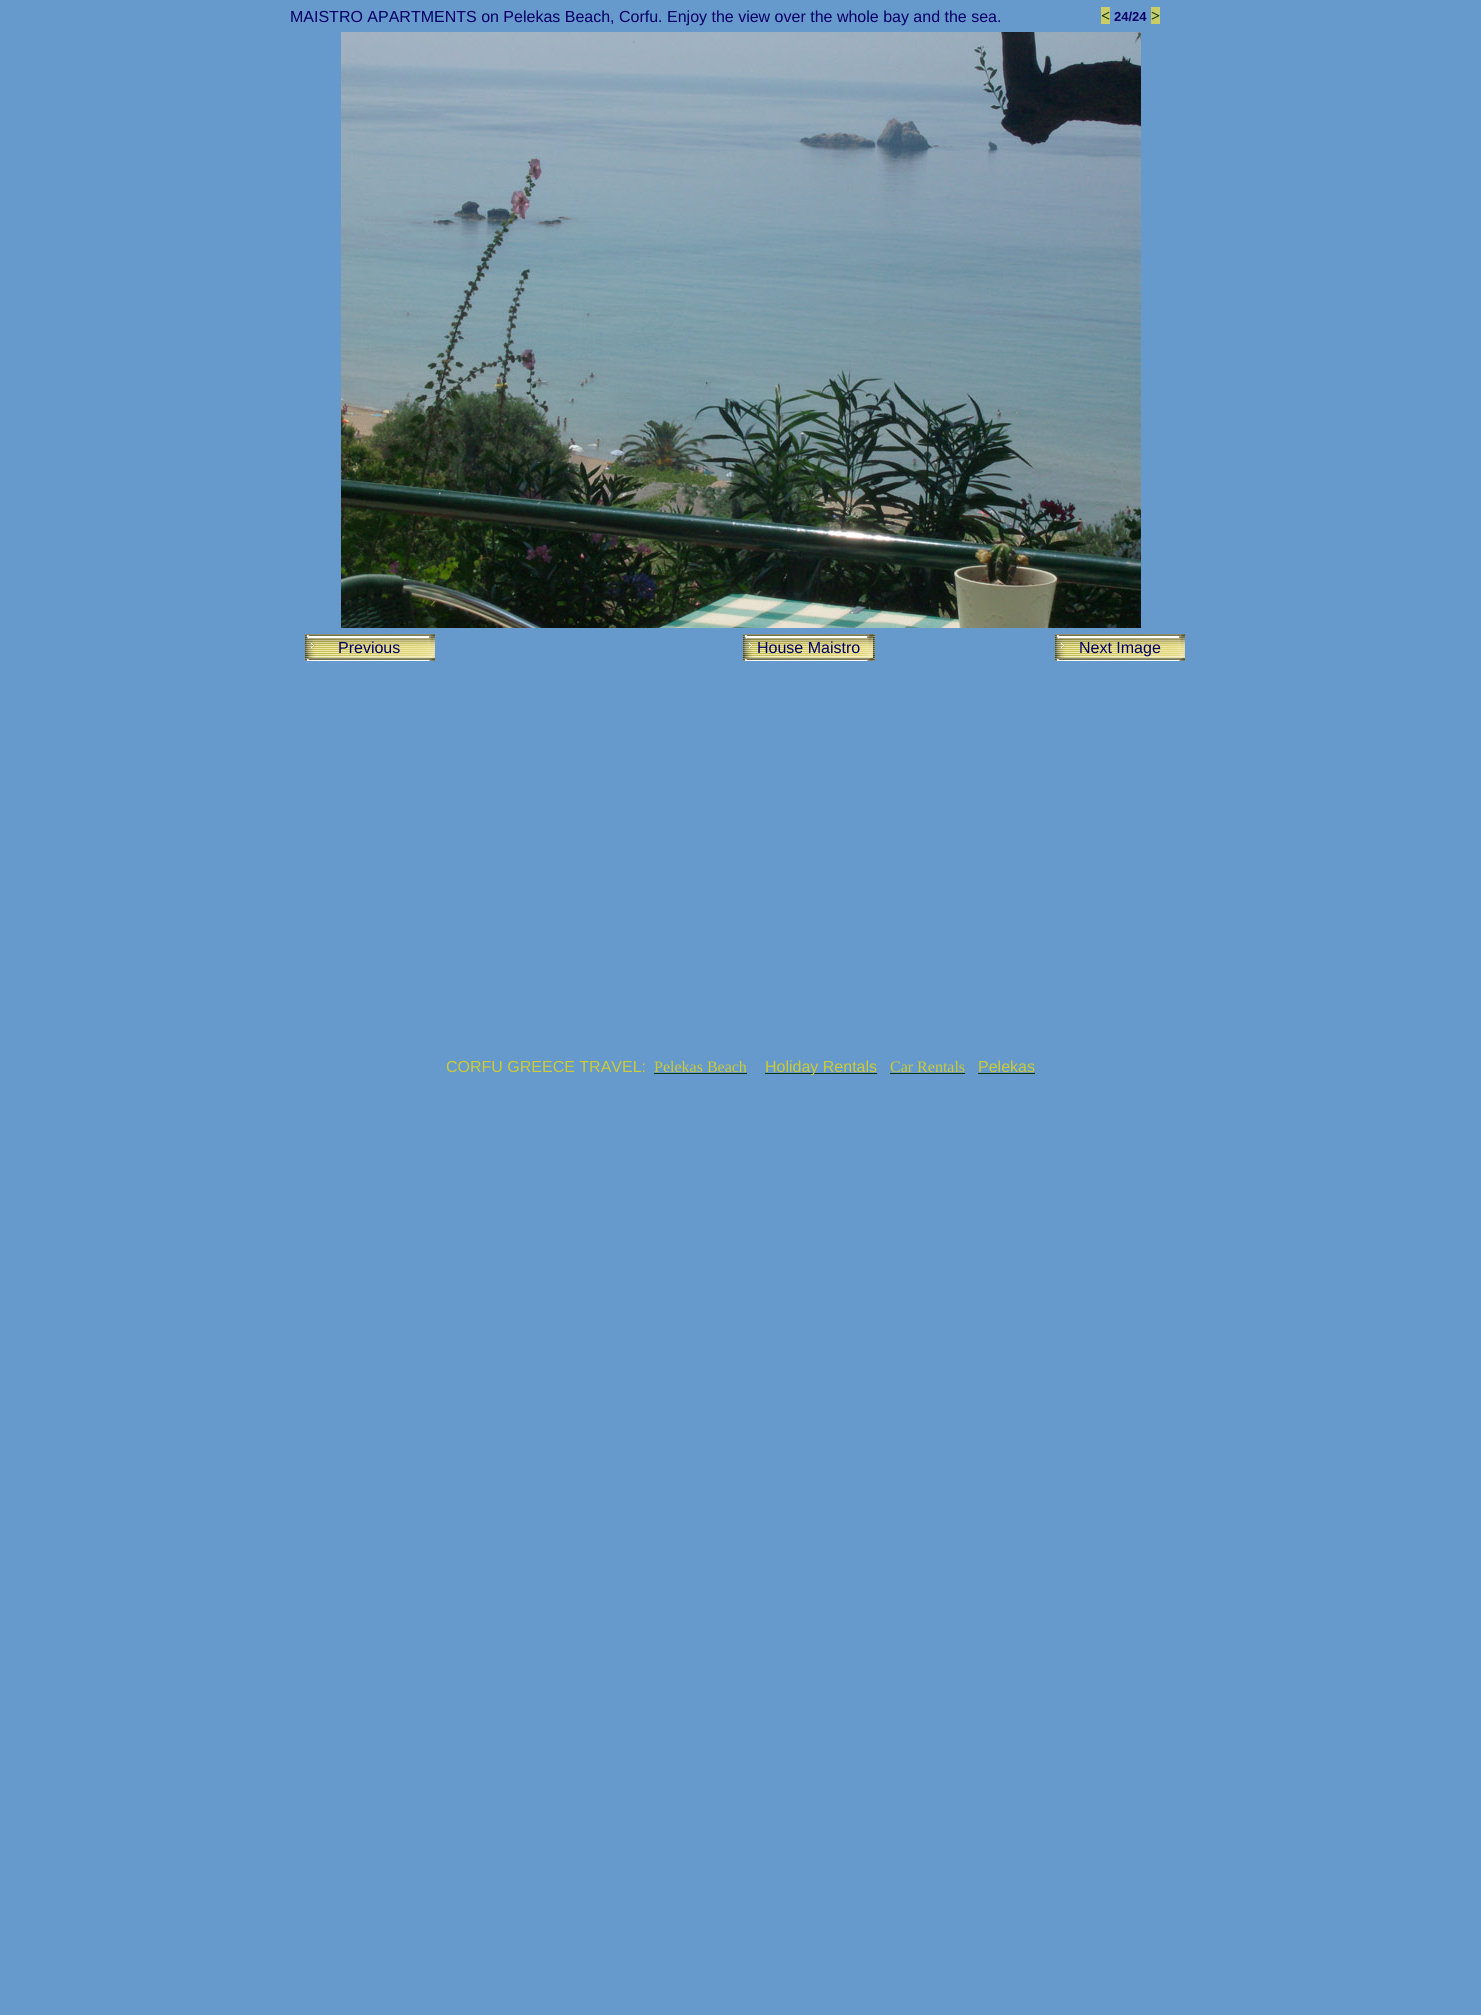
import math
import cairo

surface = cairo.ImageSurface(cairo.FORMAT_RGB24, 1481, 2015)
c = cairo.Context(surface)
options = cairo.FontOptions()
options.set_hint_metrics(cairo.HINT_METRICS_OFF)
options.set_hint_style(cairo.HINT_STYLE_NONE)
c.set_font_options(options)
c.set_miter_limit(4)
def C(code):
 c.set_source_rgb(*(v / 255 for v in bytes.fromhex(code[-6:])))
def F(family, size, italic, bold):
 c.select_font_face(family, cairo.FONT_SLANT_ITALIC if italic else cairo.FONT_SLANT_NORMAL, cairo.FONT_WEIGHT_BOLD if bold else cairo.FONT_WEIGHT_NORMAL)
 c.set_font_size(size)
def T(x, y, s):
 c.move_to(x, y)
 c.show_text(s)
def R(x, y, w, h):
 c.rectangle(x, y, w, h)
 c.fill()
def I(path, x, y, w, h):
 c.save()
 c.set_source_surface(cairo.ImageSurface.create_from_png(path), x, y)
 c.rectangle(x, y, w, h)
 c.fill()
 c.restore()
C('6699cc')
c.paint()
F('Liberation Sans',16,0,0)
C('000066')
T(290,22,'MAISTRO APARTMENTS on Pelekas Beach, Corfu. Enjoy the view over the whole bay and the sea.')
C('cccc66')
R(1101,7,9,17)
F('Liberation Serif',16,0,1)
C('003300')
T(1101,21,'<')
F('Liberation Sans',13,0,1)
C('000066')
T(1114,21,'24/24')
C('cccc66')
R(1151,7,9,17)
F('Liberation Serif',16,0,1)
C('003300')
T(1151,21,'>')
I('1.png',341,32,800,596)
I('2.png',305,634,130,27)
F('Liberation Sans',16,0,0)
C('000066')
T(338,653,'Previous')
I('3.png',743,634,132,27)
T(757,653,'House Maistro')
I('2.png',1055,634,130,27)
T(1079,653,'Next Image')
C('cccc33')
T(446,1072,'CORFU GREECE TRAVEL:')
F('Liberation Serif',16,0,0)
T(654,1072,'Pelekas Beach')
C('003300')
R(654,1073,93,1)
R(765,1073,112,1)
F('Liberation Sans',16,0,0)
C('cccc33')
T(765,1072,'Holiday Rentals')
F('Liberation Serif',16,0,0)
T(890,1072,'Car Rentals')
C('003300')
R(890,1073,75,1)
F('Liberation Sans',16,0,0)
C('cccc33')
T(978,1072,'Pelekas')
C('003300')
R(978,1073,57,1)
surface.write_to_png('o.png')
